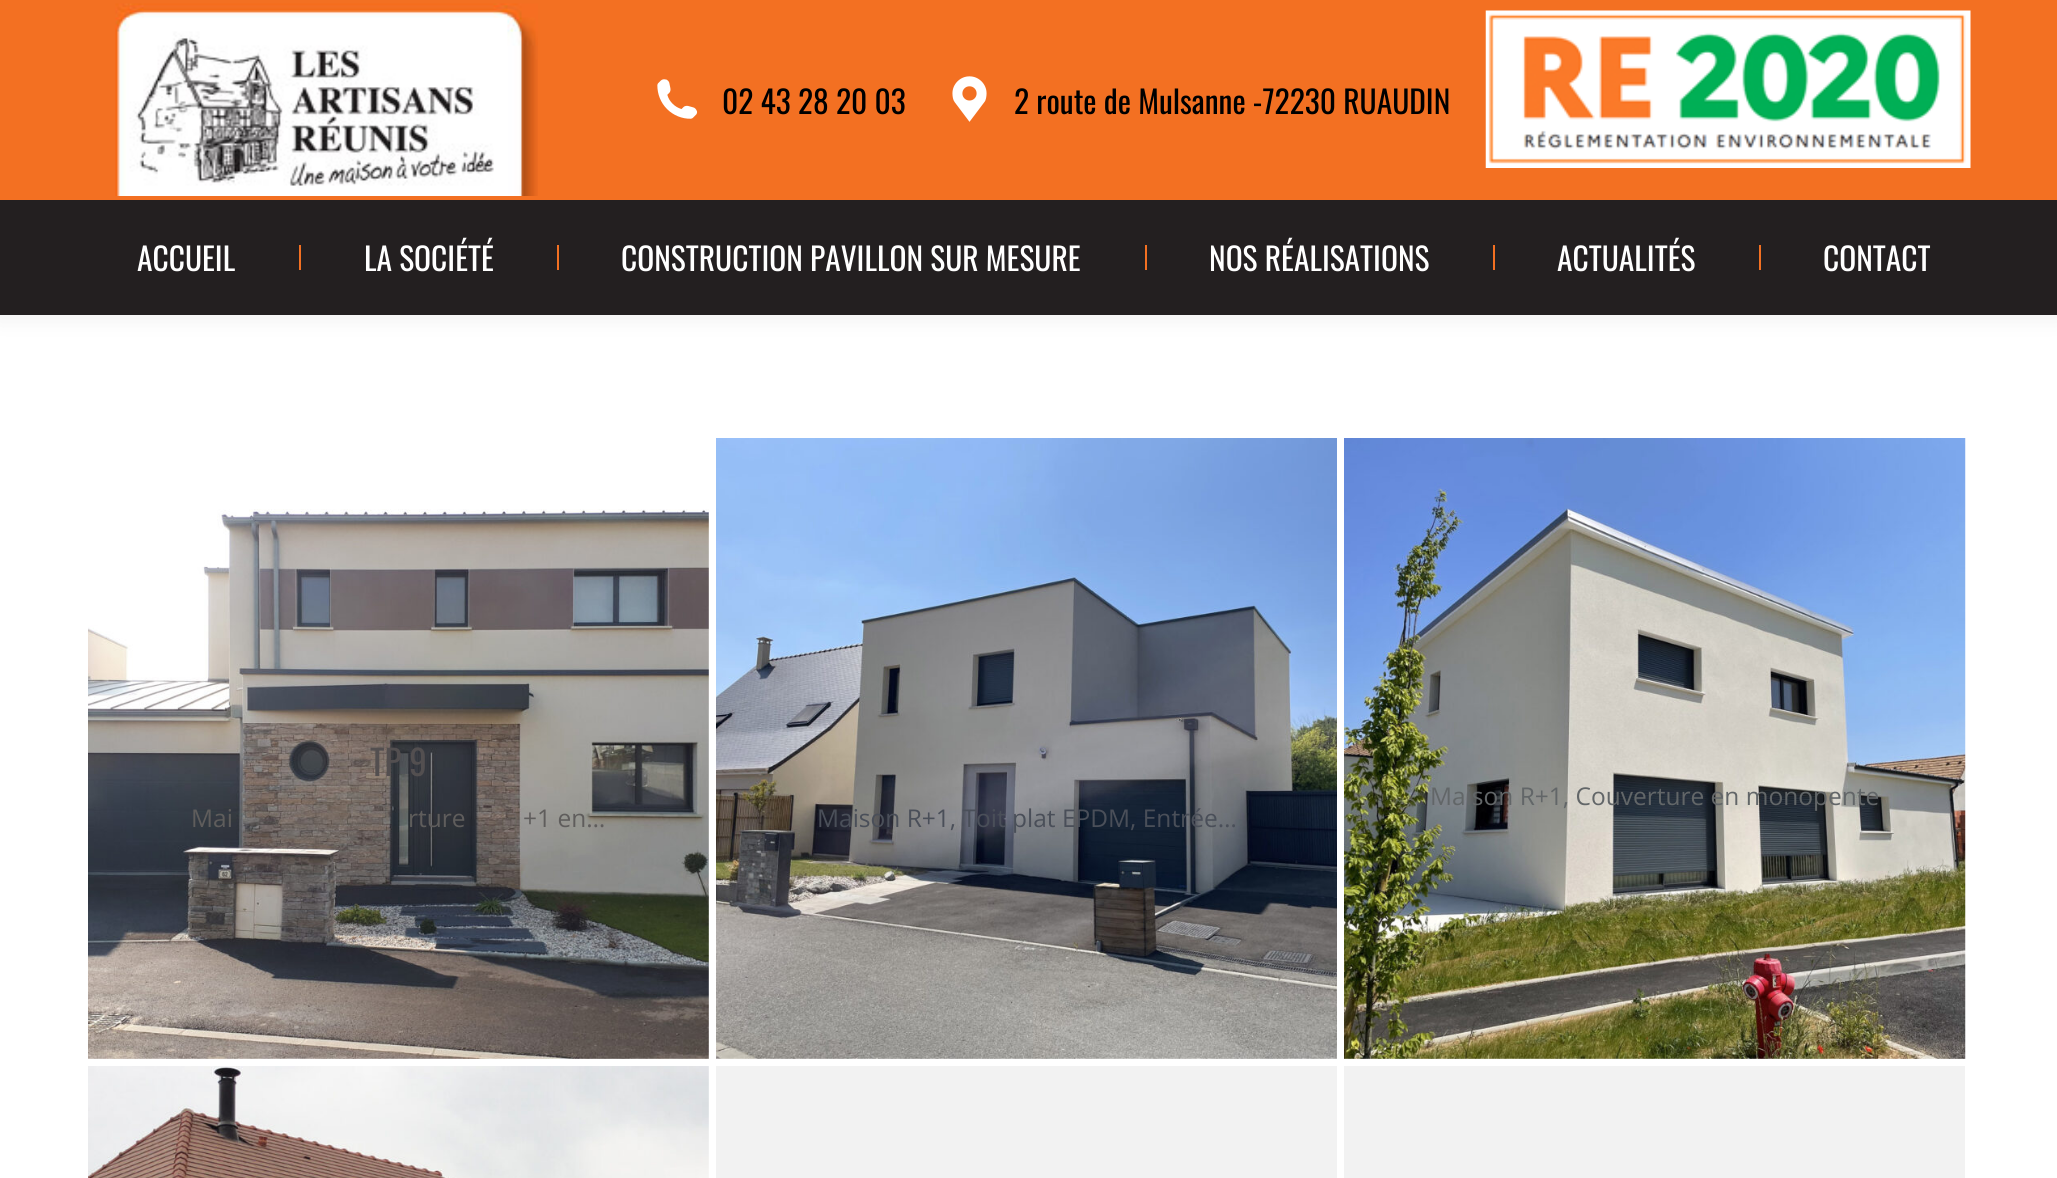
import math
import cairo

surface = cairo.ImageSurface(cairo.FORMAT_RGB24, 2057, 1178)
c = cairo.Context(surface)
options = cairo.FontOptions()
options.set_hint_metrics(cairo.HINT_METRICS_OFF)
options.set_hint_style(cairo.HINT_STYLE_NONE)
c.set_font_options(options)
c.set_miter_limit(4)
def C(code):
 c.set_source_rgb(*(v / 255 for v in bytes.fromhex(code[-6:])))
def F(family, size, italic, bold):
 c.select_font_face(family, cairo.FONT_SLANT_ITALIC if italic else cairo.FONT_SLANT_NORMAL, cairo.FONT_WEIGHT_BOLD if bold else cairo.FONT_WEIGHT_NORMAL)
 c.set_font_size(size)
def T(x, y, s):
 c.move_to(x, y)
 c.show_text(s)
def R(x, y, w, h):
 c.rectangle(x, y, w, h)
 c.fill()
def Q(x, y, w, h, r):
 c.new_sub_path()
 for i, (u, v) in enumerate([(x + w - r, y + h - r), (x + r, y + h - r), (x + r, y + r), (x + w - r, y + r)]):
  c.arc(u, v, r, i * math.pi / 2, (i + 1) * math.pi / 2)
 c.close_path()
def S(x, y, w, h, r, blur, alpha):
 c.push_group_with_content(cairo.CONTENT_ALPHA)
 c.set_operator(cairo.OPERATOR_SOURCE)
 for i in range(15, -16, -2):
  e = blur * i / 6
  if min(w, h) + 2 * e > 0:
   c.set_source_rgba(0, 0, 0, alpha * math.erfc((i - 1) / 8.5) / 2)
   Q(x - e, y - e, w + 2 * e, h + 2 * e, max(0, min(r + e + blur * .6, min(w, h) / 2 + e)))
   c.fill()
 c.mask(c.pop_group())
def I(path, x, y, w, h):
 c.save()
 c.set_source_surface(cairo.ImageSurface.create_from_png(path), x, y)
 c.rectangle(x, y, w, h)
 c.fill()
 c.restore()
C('ffffff')
c.paint()
C('000000')
S(-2,-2,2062,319,0,13,.07)
C('f37022')
R(0,0,2057,200)
I('1.png',115,3,423,193)
I('2.png',657,79,41,40)
F('Oswald',31.5,0,0)
C('000000')
T(722,114,'02 43 28 20 03')
I('3.png',952,76,35,46)
T(1014,114,'2 route de Mulsanne -72230 RUAUDIN')
I('4.png',1485,10,486,158)
C('231f20')
R(0,200,2057,115)
C('ffffff')
T(137,271,'ACCUEIL')
C('f37022')
R(299,245,2,25)
C('ffffff')
T(364,271,'LA SOCIÉTÉ')
C('f37022')
R(557,245,2,25)
C('ffffff')
T(621,271,'CONSTRUCTION PAVILLON SUR MESURE')
C('f37022')
R(1145,245,2,25)
C('ffffff')
T(1209,271,'NOS RÉALISATIONS')
C('f37022')
R(1493,245,2,25)
C('ffffff')
T(1557,271,'ACTUALITÉS')
C('f37022')
R(1759,245,2,25)
C('ffffff')
T(1823,271,'CONTACT')
I('5.png',88,509,621,550)
F('Oswald',35,0,0)
C('534f50')
T(370,776,'TP 9')
F('Open Sans',24.5,0,0)
C('5f5d5c')
T(191,827,'Mai')
T(408,827,'rture')
T(523,827,'+1 en…')
I('6.png',1344,438,622,621)
C('626668')
T(1430,805,'Maison R+1, Couverture en monopente')
I('7.png',716,438,621,621)
C('4a4f59')
T(817,827,'Maison R+1, Toit plat EPDM, Entrée…')
I('8.png',88,1066,621,112)
C('f2f2f2')
R(716,1066,621,112)
R(1344,1066,621,112)
surface.write_to_png('o.png')
